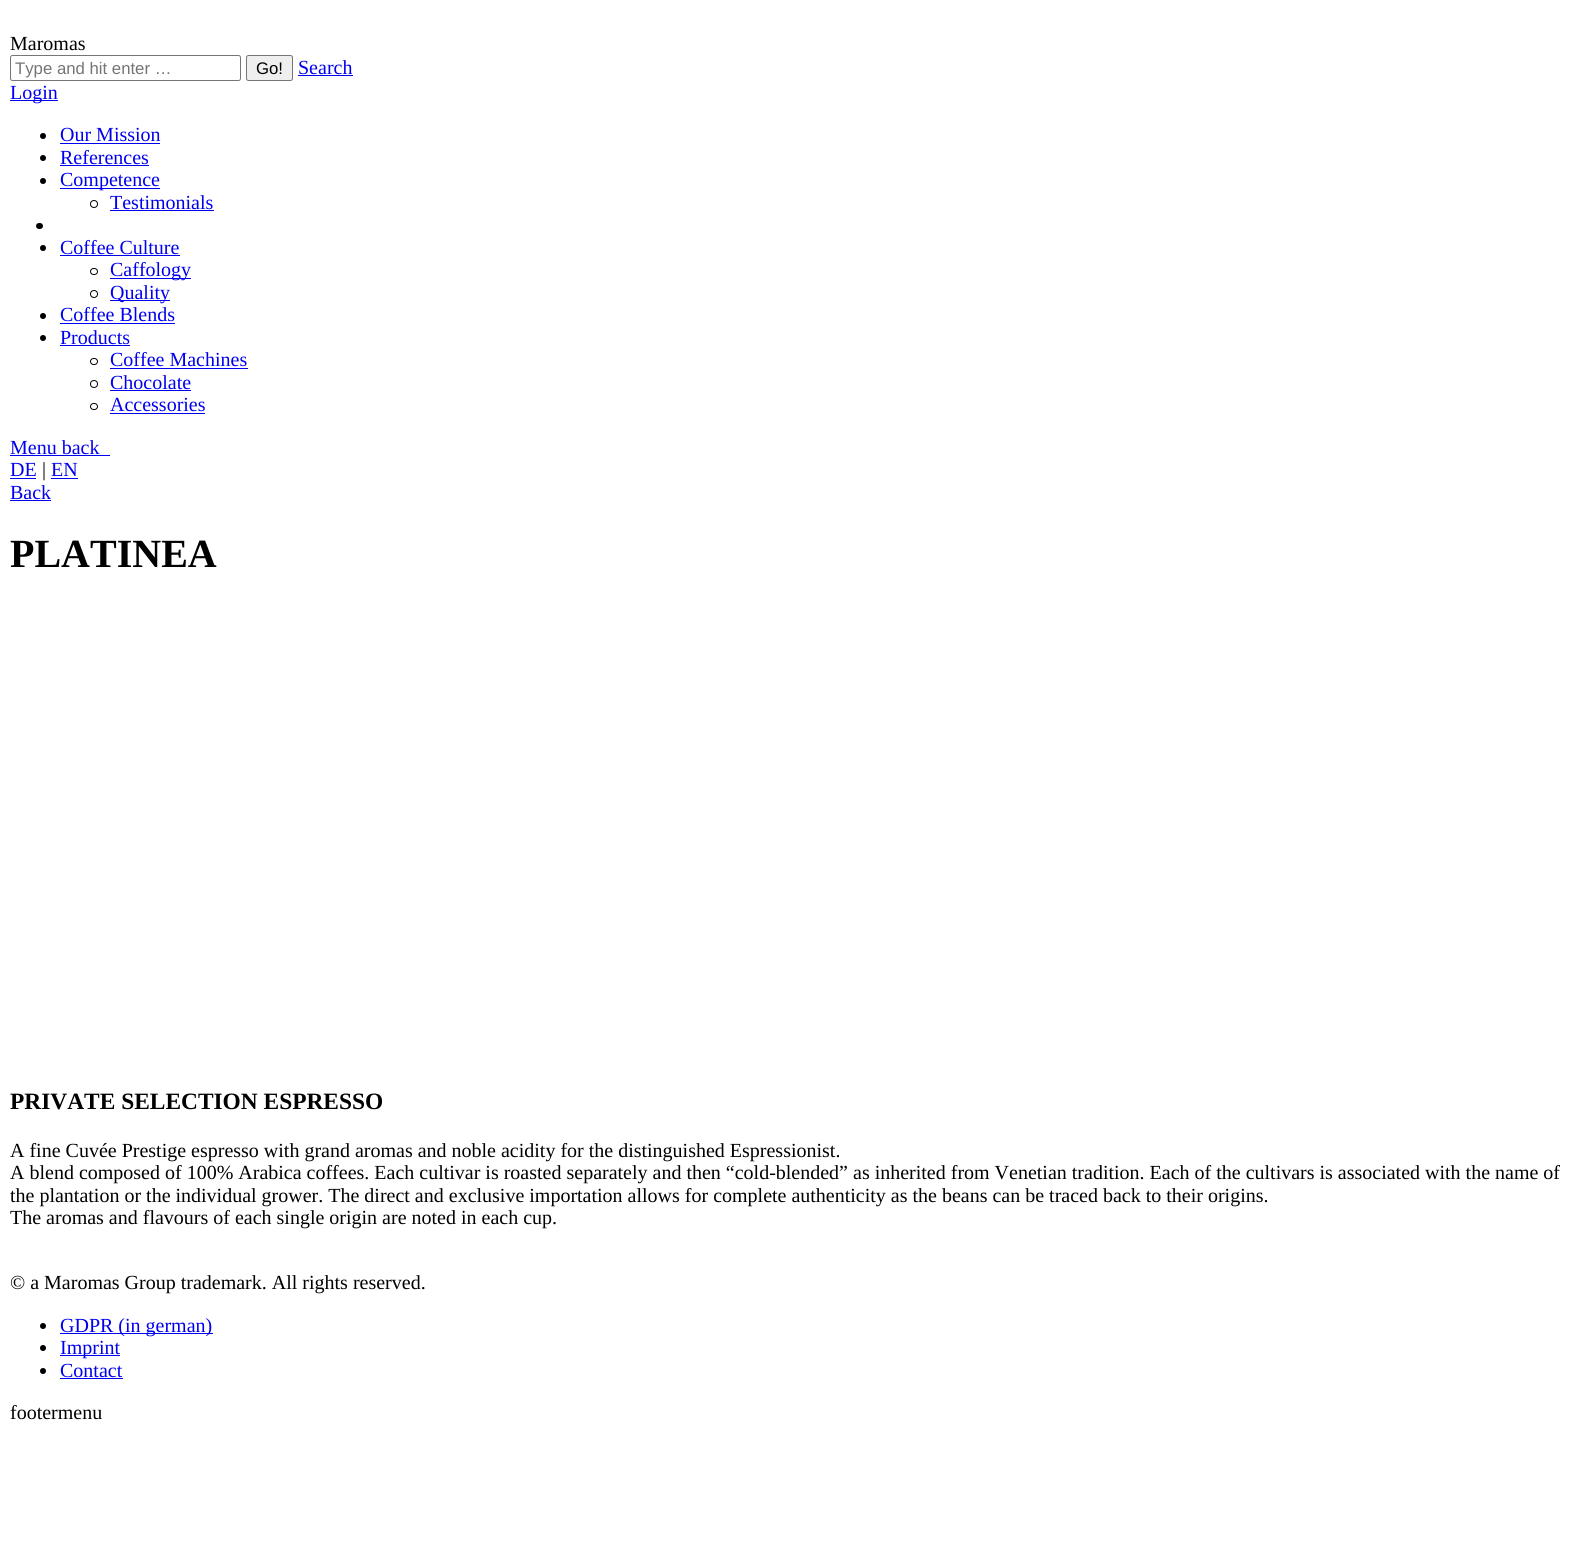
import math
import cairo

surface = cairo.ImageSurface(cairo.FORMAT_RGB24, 1584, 1549)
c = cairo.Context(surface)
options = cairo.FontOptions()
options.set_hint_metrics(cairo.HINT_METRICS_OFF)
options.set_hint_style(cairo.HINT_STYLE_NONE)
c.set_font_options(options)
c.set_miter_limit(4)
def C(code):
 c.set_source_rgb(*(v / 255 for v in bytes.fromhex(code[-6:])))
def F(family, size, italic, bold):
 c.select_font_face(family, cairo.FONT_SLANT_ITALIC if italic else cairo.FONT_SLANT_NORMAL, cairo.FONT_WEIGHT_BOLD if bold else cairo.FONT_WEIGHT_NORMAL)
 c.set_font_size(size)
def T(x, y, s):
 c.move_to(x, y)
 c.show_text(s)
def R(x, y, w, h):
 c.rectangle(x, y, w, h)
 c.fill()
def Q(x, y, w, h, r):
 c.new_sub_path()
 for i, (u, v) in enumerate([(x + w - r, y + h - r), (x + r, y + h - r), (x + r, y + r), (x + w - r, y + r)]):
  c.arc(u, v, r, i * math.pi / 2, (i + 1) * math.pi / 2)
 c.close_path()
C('ffffff')
c.paint()
F('Liberation Serif',20,0,0)
C('000000')
T(10,50,'Maromas')
Q(10.5,55.5,230,25,2)
C('767676')
c.set_line_width(1)
c.stroke()
F('Liberation Sans',16.75,0,0)
C('757575')
T(15,74,'Type and hit enter …')
C('efefef')
Q(246.5,55.5,46,25,2)
c.fill_preserve()
C('767676')
c.stroke()
C('000000')
T(256,74,'Go!')
F('Liberation Serif',20,0,0)
C('0000ee')
T(298,74,'Search')
R(298,75,55,1)
R(10,100,48,1)
T(10,99,'Login')
C('000000')
c.new_path()
c.arc(43,136,3,0,2 * math.pi)
c.fill()
C('0000ee')
T(60,141,'Our Mission')
R(60,143,100,1)
C('000000')
c.new_path()
c.arc(43,158,3,0,2 * math.pi)
c.fill()
C('0000ee')
T(60,164,'References')
R(60,165,89,1)
C('000000')
c.new_path()
c.arc(43,181,3,0,2 * math.pi)
c.fill()
C('0000ee')
R(60,188,100,1)
T(60,186,'Competence')
c.new_path()
c.arc(94,204,3.5,0,2 * math.pi)
C('000000')
c.stroke()
C('0000ee')
T(110,209,'Testimonials')
R(110,210,104,1)
C('000000')
Q(36,223,7,6,3)
c.fill()
c.arc(43,248,3,0,2 * math.pi)
c.fill()
C('0000ee')
T(60,254,'Coffee Culture')
R(60,255,120,1)
Q(90.5,268.5,7,6,3)
C('000000')
c.stroke()
C('0000ee')
R(110,278,81,1)
T(110,276,'Caffology')
c.new_path()
c.arc(94,294,3.5,0,2 * math.pi)
C('000000')
c.stroke()
C('0000ee')
R(110,300,60,1)
T(110,299,'Quality')
C('000000')
c.new_path()
c.arc(43,316,3,0,2 * math.pi)
c.fill()
C('0000ee')
T(60,321,'Coffee Blends')
R(60,323,115,1)
C('000000')
c.new_path()
c.arc(43,338,3,0,2 * math.pi)
c.fill()
C('0000ee')
T(60,344,'Products')
R(60,345,70,1)
Q(90.5,358.5,7,6,3)
C('000000')
c.stroke()
C('0000ee')
T(110,366,'Coffee Machines')
R(110,368,138,1)
c.new_path()
c.arc(94,384,3.5,0,2 * math.pi)
C('000000')
c.stroke()
C('0000ee')
T(110,389,'Chocolate')
R(110,390,81,1)
Q(90.5,403.5,7,6,3)
C('000000')
c.stroke()
C('0000ee')
T(110,411,'Accessories')
R(110,413,95,1)
T(10,454,'Menu back')
R(10,455,100,1)
T(10,476,'DE')
R(10,478,26,1)
C('000000')
T(42,476,'|')
C('0000ee')
T(51,476,'EN')
R(51,478,27,1)
T(10,499,'Back')
R(10,500,41,1)
F('Liberation Serif',40,0,1)
C('000000')
T(10,567,'PLATINEA')
F('Liberation Serif',23.4,0,1)
T(10,1109,'PRIVATE SELECTION ESPRESSO')
F('Liberation Serif',20,0,0)
T(10,1157,'A fine Cuvée Prestige espresso with grand aromas and noble acidity for the distinguished Espressionist.')
T(10,1179,'A blend composed of 100% Arabica coffees. Each cultivar is roasted separately and then “cold-blended” as inherited from Venetian tradition. Each of the cultivars is associated with the name of')
T(10,1202,'the plantation or the individual grower. The direct and exclusive importation allows for complete authenticity as the beans can be traced back to their origins.')
T(10,1224,'The aromas and flavours of each single origin are noted in each cup.')
T(10,1289,'© a Maromas Group trademark. All rights reserved.')
c.new_path()
c.arc(43,1326,3,0,2 * math.pi)
c.fill()
C('0000ee')
R(60,1333,153,1)
T(60,1332,'GDPR (in german)')
C('000000')
c.new_path()
c.arc(43,1348,3,0,2 * math.pi)
c.fill()
C('0000ee')
R(60,1355,60,1)
T(60,1354,'Imprint')
C('000000')
c.new_path()
c.arc(43,1371,3,0,2 * math.pi)
c.fill()
C('0000ee')
T(60,1377,'Contact')
R(60,1378,63,1)
C('000000')
T(10,1419,'footermenu')
surface.write_to_png('o.png')
